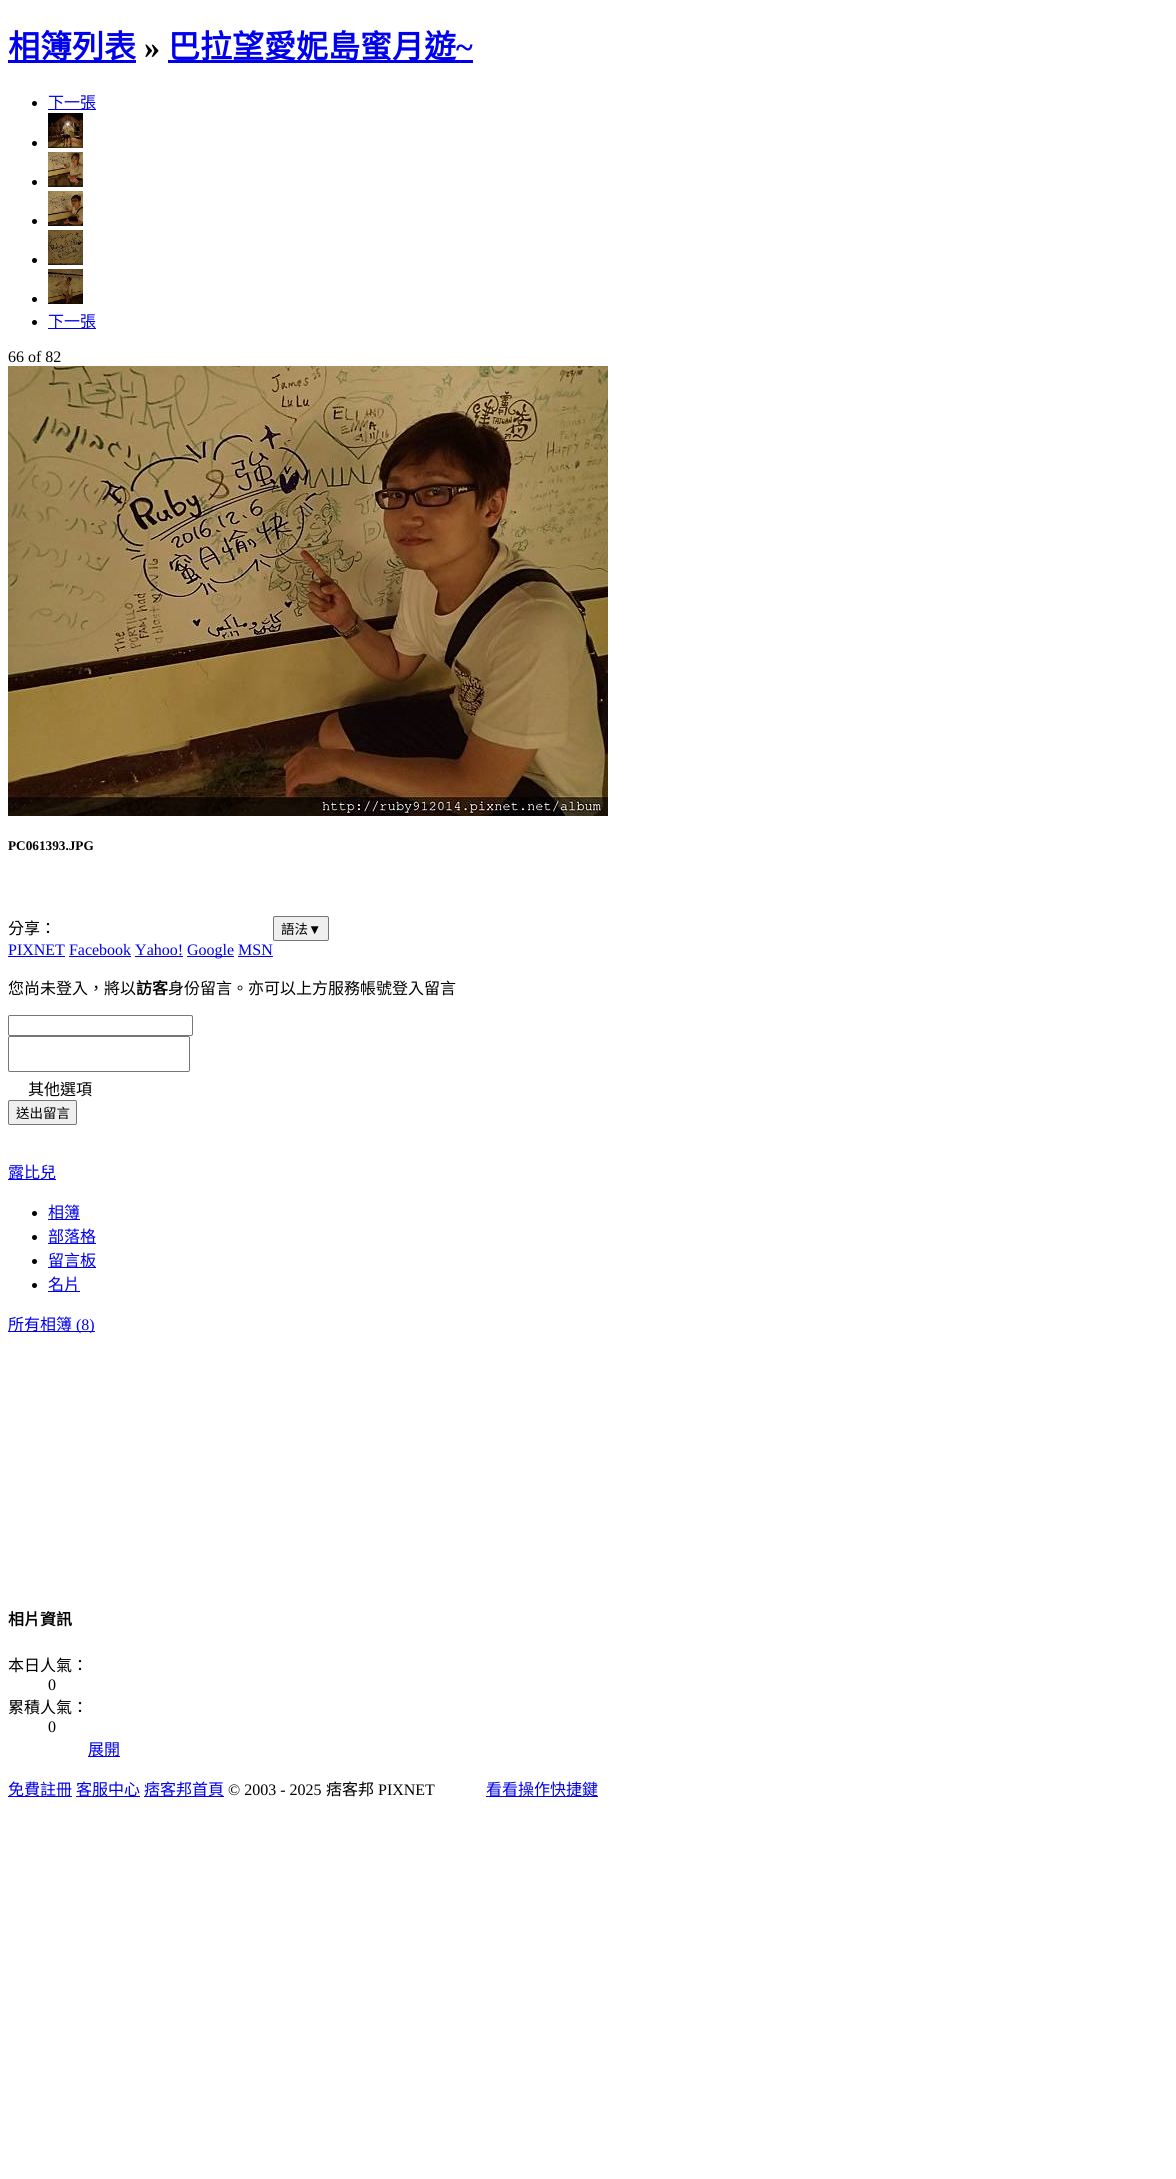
import math
import cairo

surface = cairo.ImageSurface(cairo.FORMAT_RGB24, 1176, 2179)
c = cairo.Context(surface)
options = cairo.FontOptions()
options.set_hint_metrics(cairo.HINT_METRICS_OFF)
options.set_hint_style(cairo.HINT_STYLE_NONE)
c.set_font_options(options)
c.set_miter_limit(4)
def C(code):
 c.set_source_rgb(*(v / 255 for v in bytes.fromhex(code[-6:])))
def F(family, size, italic, bold):
 c.select_font_face(family, cairo.FONT_SLANT_ITALIC if italic else cairo.FONT_SLANT_NORMAL, cairo.FONT_WEIGHT_BOLD if bold else cairo.FONT_WEIGHT_NORMAL)
 c.set_font_size(size)
def T(x, y, s):
 c.move_to(x, y)
 c.show_text(s)
def R(x, y, w, h):
 c.rectangle(x, y, w, h)
 c.fill()
def Q(x, y, w, h, r):
 c.new_sub_path()
 for i, (u, v) in enumerate([(x + w - r, y + h - r), (x + r, y + h - r), (x + r, y + r), (x + w - r, y + r)]):
  c.arc(u, v, r, i * math.pi / 2, (i + 1) * math.pi / 2)
 c.close_path()
def I(path, x, y, w, h):
 c.save()
 c.set_source_surface(cairo.ImageSurface.create_from_png(path), x, y)
 c.rectangle(x, y, w, h)
 c.fill()
 c.restore()
C('ffffff')
c.paint()
C('0000ee')
R(8,60,128,3)
F('Noto Sans CJK TC',32,0,1)
T(8,58,'相簿列表')
F('Liberation Serif',32,0,1)
C('000000')
T(144,58,'»')
C('0000ee')
R(168,60,305,3)
F('Noto Sans CJK TC',32,0,1)
T(168,58,'巴拉望愛妮島蜜月遊')
F('Liberation Serif',32,0,1)
T(456,58,'~')
C('000000')
c.new_path()
c.arc(34.5,103.5,2.5,0,2 * math.pi)
c.fill()
C('0000ee')
R(48,109,48,1)
F('Noto Sans CJK TC',16,0,0)
T(48,108,'下一張')
C('000000')
c.new_path()
c.arc(34.5,143.5,2.5,0,2 * math.pi)
c.fill()
I('1.png',48,113,35,35)
c.arc(34.5,182.5,2.5,0,2 * math.pi)
c.fill()
I('2.png',48,152,35,35)
c.arc(34.5,221.5,2.5,0,2 * math.pi)
c.fill()
I('3.png',48,191,35,35)
c.arc(34.5,260.5,2.5,0,2 * math.pi)
c.fill()
I('4.png',48,230,35,35)
c.arc(34.5,299.5,2.5,0,2 * math.pi)
c.fill()
I('5.png',48,269,35,35)
c.arc(34.5,322.5,2.5,0,2 * math.pi)
c.fill()
C('0000ee')
R(48,328,48,1)
T(48,327,'下一張')
F('Liberation Serif',16,0,0)
C('000000')
T(8,362,'66 of 82')
I('6.png',8,366,600,450)
F('Liberation Serif',13.25,0,1)
T(8,850,'PC061393.JPG')
F('Noto Sans CJK TC',16,0,0)
T(8,934,'分享：')
C('efefef')
Q(273.5,916.5,55,24,1.5)
c.fill_preserve()
C('767676')
c.set_line_width(1)
c.stroke()
F('Noto Sans CJK TC',13.5,0,0)
C('000000')
T(281,934,'語法')
F('Liberation Sans',13.5,0,0)
T(308,934,'▼')
F('Liberation Serif',16,0,0)
C('0000ee')
T(8,955,'PIXNET Facebook Yahoo!')
R(8,956,57,1)
R(187,956,47,1)
T(187,955,'Google MSN')
R(69,956,62,1)
R(135,956,48,1)
R(238,956,35,1)
F('Noto Sans CJK TC',16,0,0)
C('000000')
T(8,994,'您尚未登入，將以')
F('Noto Sans CJK TC',16,0,1)
T(136,994,'訪客')
F('Noto Sans CJK TC',16,0,0)
T(168,994,'身份留言。亦可以上方服務帳號登入留言')
Q(8.5,1015.5,184,20,1.5)
C('767676')
c.stroke()
Q(8.5,1036.5,181,35,1.5)
c.stroke()
C('000000')
T(28,1095,'其他選項')
C('efefef')
Q(8.5,1100.5,68,24,1.5)
c.fill_preserve()
C('767676')
c.stroke()
F('Noto Sans CJK TC',13.5,0,0)
C('000000')
T(16,1118,'送出留言')
C('0000ee')
R(8,1179,48,1)
F('Noto Sans CJK TC',16,0,0)
T(8,1178,'露比兒')
C('000000')
c.new_path()
c.arc(34.5,1213.5,2.5,0,2 * math.pi)
c.fill()
C('0000ee')
R(48,1219,32,1)
T(48,1218,'相簿')
C('000000')
c.new_path()
c.arc(34.5,1237.5,2.5,0,2 * math.pi)
c.fill()
C('0000ee')
R(48,1243,48,1)
T(48,1242,'部落格')
C('000000')
c.new_path()
c.arc(34.5,1261.5,2.5,0,2 * math.pi)
c.fill()
C('0000ee')
R(48,1267,48,1)
T(48,1266,'留言板')
C('000000')
c.new_path()
c.arc(34.5,1285.5,2.5,0,2 * math.pi)
c.fill()
C('0000ee')
R(48,1291,32,1)
T(48,1290,'名片')
R(8,1331,87,1)
T(8,1330,'所有相簿')
F('Liberation Serif',16,0,0)
T(76,1330,'(8)')
F('Noto Sans CJK TC',16,0,1)
C('000000')
T(8,1625,'相片資訊')
F('Noto Sans CJK TC',16,0,0)
T(8,1671,'本日人氣：')
F('Liberation Serif',16,0,0)
T(48,1690,'0')
F('Noto Sans CJK TC',16,0,0)
T(8,1713,'累積人氣：')
F('Liberation Serif',16,0,0)
T(48,1732,'0')
C('0000ee')
R(88,1756,32,1)
F('Noto Sans CJK TC',16,0,0)
T(88,1755,'展開')
R(8,1796,64,1)
T(8,1795,'免費註冊')
R(76,1796,64,1)
T(76,1795,'客服中心')
R(144,1796,80,1)
T(144,1795,'痞客邦首頁')
F('Liberation Serif',16,0,0)
C('000000')
T(228,1795,'© 2003 - 2025')
F('Noto Sans CJK TC',16,0,0)
T(326,1795,'痞客邦')
F('Liberation Serif',16,0,0)
T(378,1795,'PIXNET')
C('0000ee')
R(486,1796,112,1)
F('Noto Sans CJK TC',16,0,0)
T(486,1795,'看看操作快捷鍵')
surface.write_to_png('o.png')
